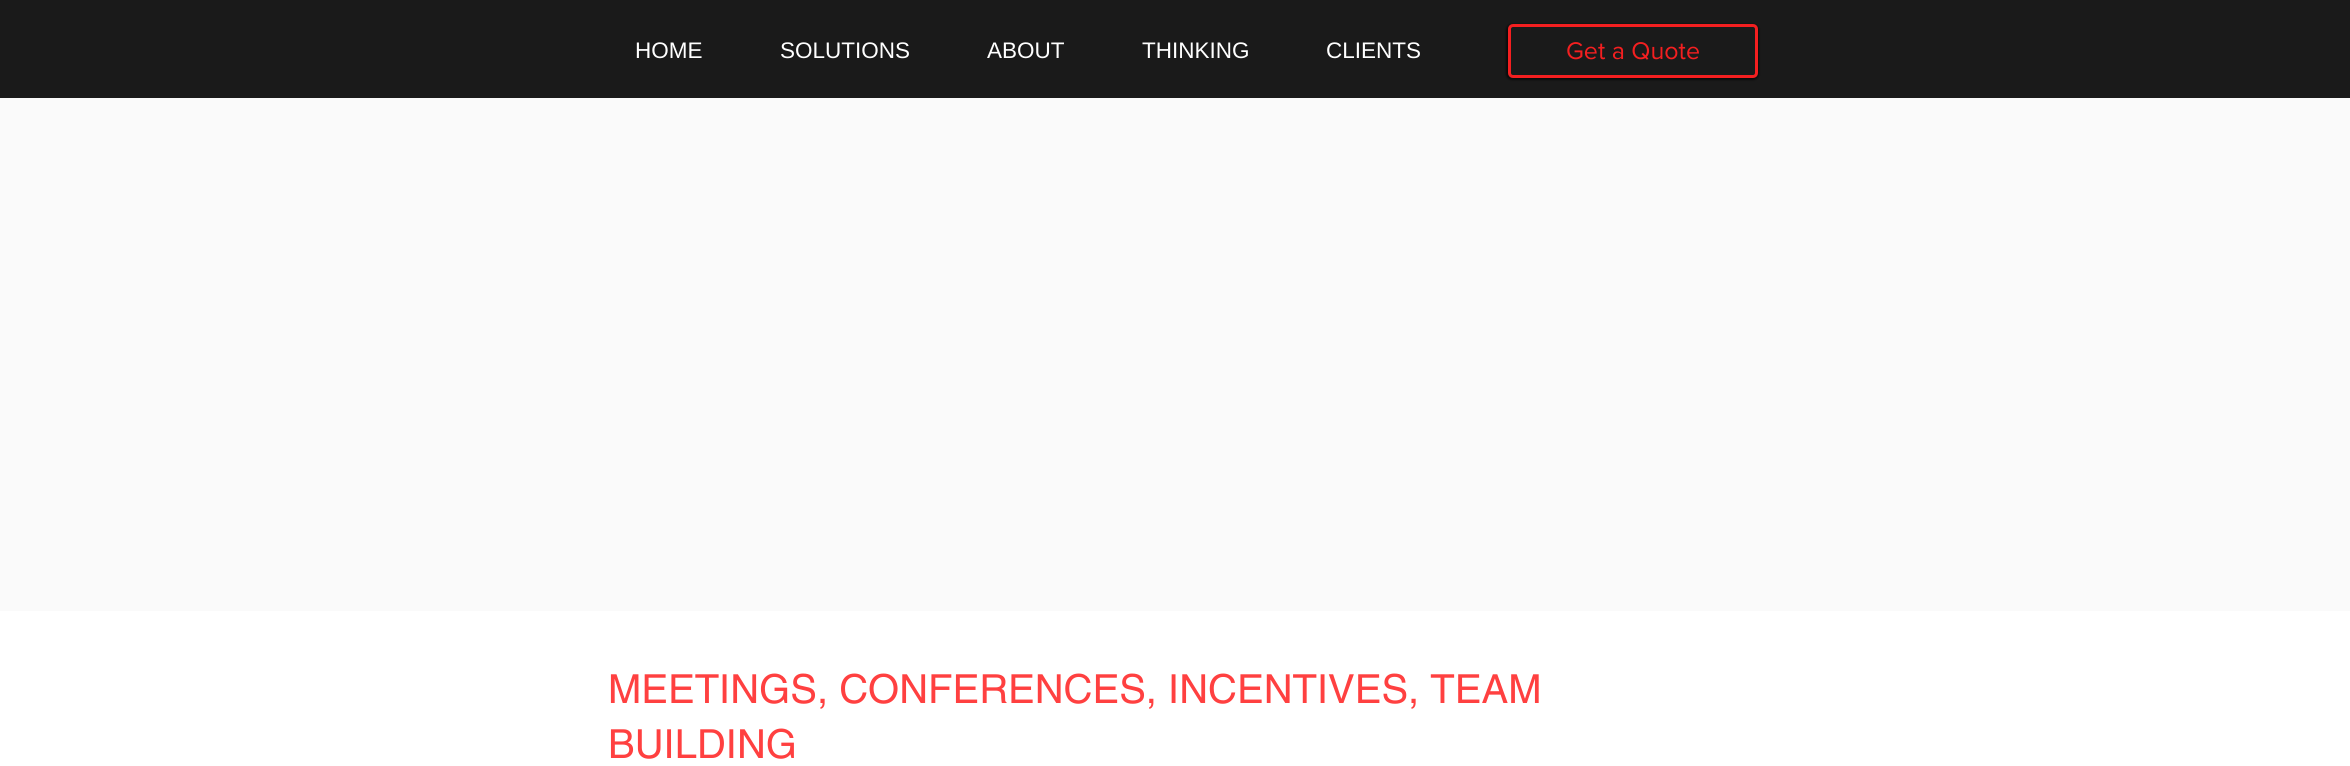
import math
import cairo

surface = cairo.ImageSurface(cairo.FORMAT_RGB24, 2350, 766)
c = cairo.Context(surface)
options = cairo.FontOptions()
options.set_hint_metrics(cairo.HINT_METRICS_OFF)
options.set_hint_style(cairo.HINT_STYLE_NONE)
c.set_font_options(options)
c.set_miter_limit(4)
def C(code):
 c.set_source_rgb(*(v / 255 for v in bytes.fromhex(code[-6:])))
def F(family, size, italic, bold):
 c.select_font_face(family, cairo.FONT_SLANT_ITALIC if italic else cairo.FONT_SLANT_NORMAL, cairo.FONT_WEIGHT_BOLD if bold else cairo.FONT_WEIGHT_NORMAL)
 c.set_font_size(size)
def T(x, y, s):
 c.move_to(x, y)
 c.show_text(s)
def R(x, y, w, h):
 c.rectangle(x, y, w, h)
 c.fill()
def Q(x, y, w, h, r):
 c.new_sub_path()
 for i, (u, v) in enumerate([(x + w - r, y + h - r), (x + r, y + h - r), (x + r, y + r), (x + w - r, y + r)]):
  c.arc(u, v, r, i * math.pi / 2, (i + 1) * math.pi / 2)
 c.close_path()
def S(x, y, w, h, r, blur, alpha):
 c.push_group_with_content(cairo.CONTENT_ALPHA)
 c.set_operator(cairo.OPERATOR_SOURCE)
 for i in range(15, -16, -2):
  e = blur * i / 6
  if min(w, h) + 2 * e > 0:
   c.set_source_rgba(0, 0, 0, alpha * math.erfc((i - 1) / 8.5) / 2)
   Q(x - e, y - e, w + 2 * e, h + 2 * e, max(0, min(r + e + blur * .6, min(w, h) / 2 + e)))
   c.fill()
 c.mask(c.pop_group())
C('ffffff')
c.paint()
C('1a1a1a')
R(0,0,2350,98)
F('Liberation Sans',22.5,0,0)
C('ffffff')
T(635,58,'HOME')
T(780,58,'SOLUTIONS')
T(987,58,'ABOUT')
T(1142,58,'THINKING')
T(1326,58,'CLIENTS')
c.save()
c.set_fill_rule(cairo.FILL_RULE_EVEN_ODD)
c.new_path()
c.move_to(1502,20)
c.line_to(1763,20)
c.line_to(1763,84)
c.line_to(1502,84)
c.close_path()
c.move_to(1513,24)
c.line_to(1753,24)
c.curve_to(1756,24,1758,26,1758,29)
c.line_to(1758,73)
c.curve_to(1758,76,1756,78,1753,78)
c.line_to(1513,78)
c.curve_to(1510,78,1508,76,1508,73)
c.line_to(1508,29)
c.curve_to(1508,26,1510,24,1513,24)
c.close_path()
c.clip()
C('000000')
S(1506,24,253,56,6,1,.6)
c.restore()
Q(1509.5,25.5,247,51,3.5)
C('f41f20')
c.set_line_width(3)
c.stroke()
F('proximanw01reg',25,0,0)
T(1566,59,'Get a Quote')
C('fafafa')
R(0,98,2350,513)
F('helvetica',40,0,0)
C('ff4040')
T(608,703,'MEETINGS, CONFERENCES, INCENTIVES, TEAM')
T(608,758,'BUILDING')
surface.write_to_png('o.png')
